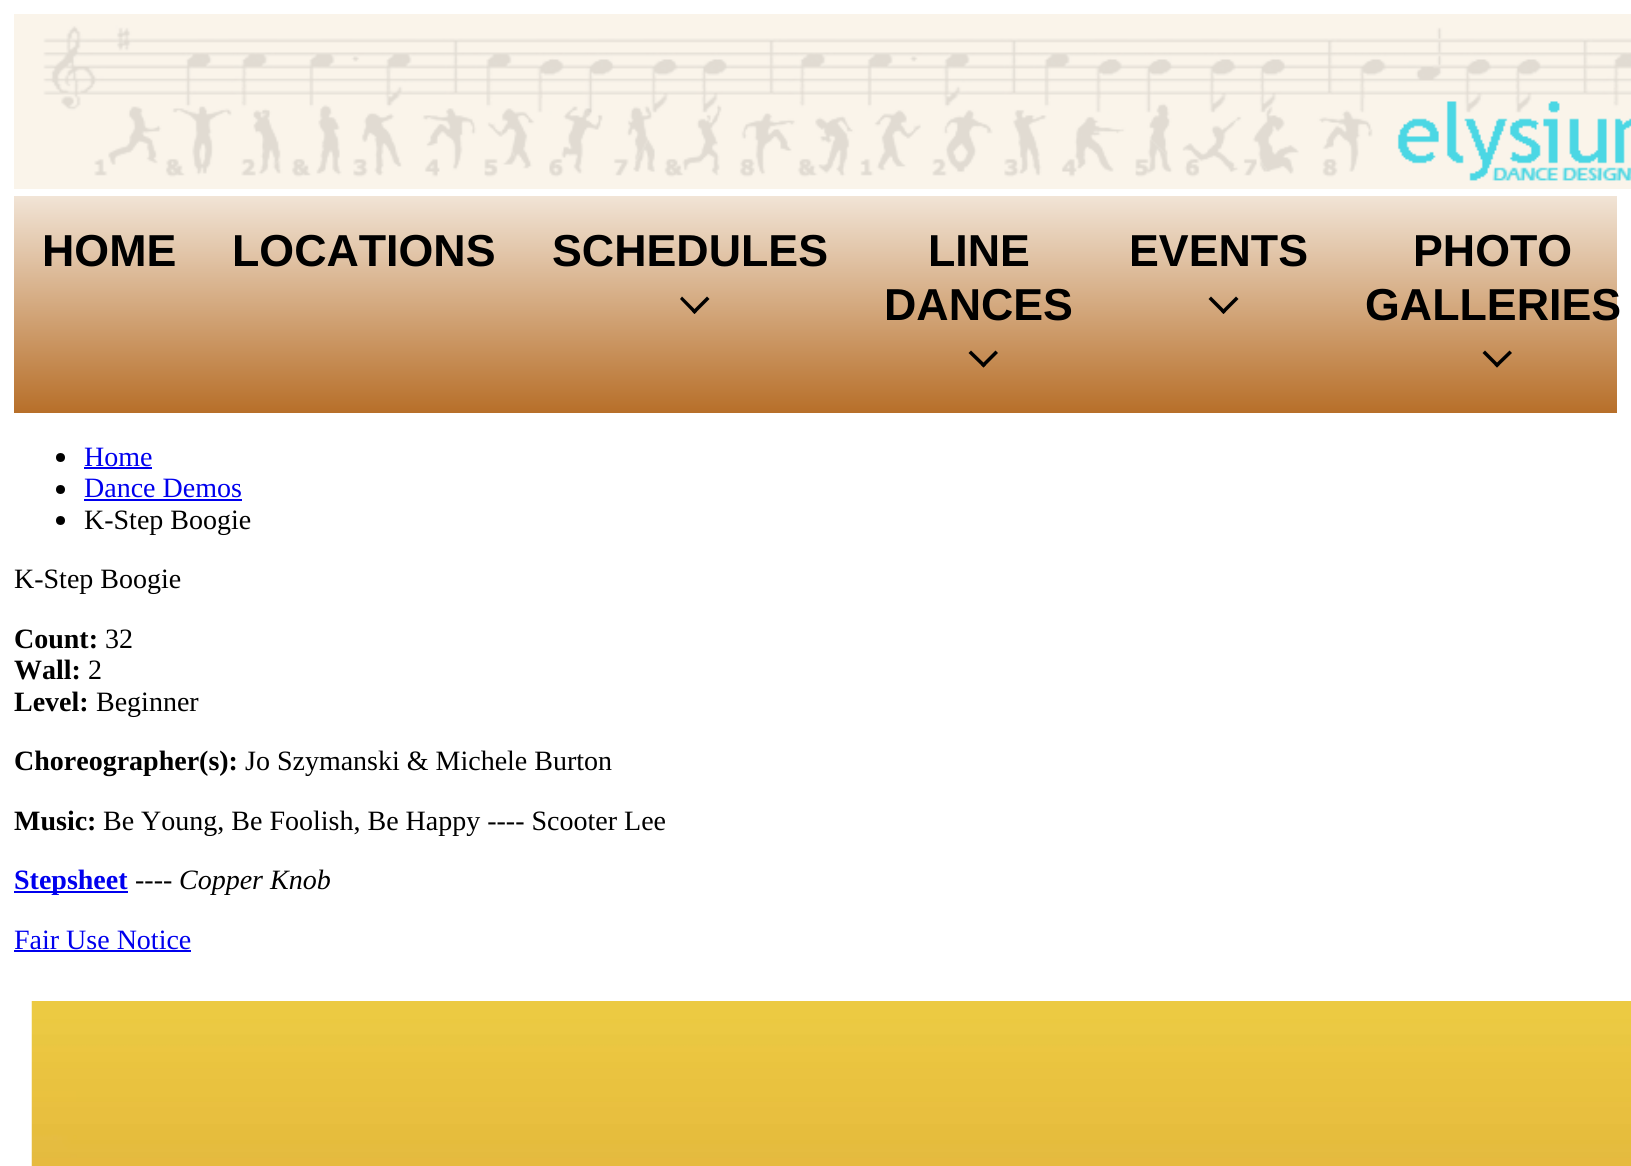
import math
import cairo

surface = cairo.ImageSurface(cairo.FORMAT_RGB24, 1631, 1166)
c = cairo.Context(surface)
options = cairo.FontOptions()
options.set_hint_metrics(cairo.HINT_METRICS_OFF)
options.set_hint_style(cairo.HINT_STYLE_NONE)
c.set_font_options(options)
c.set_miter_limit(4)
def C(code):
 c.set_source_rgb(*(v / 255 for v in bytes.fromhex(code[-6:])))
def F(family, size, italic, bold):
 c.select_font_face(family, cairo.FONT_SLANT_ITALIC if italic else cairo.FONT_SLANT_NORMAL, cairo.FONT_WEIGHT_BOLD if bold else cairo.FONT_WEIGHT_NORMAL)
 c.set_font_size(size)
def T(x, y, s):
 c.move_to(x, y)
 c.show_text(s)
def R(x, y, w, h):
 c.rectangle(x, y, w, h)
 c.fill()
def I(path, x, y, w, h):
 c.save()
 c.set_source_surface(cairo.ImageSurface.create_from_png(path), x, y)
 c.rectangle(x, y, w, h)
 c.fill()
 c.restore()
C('ffffff')
c.paint()
I('1.png',14,14,1617,175)
gradient = cairo.LinearGradient(816,196,816,413)
gradient.add_color_stop_rgba(0,0.945,0.894,0.839,1)
gradient.add_color_stop_rgba(1,0.718,0.435,0.161,1)
c.set_source(gradient)
R(14,196,1603,217)
F('Liberation Sans',44.75,0,1)
C('000000')
T(42,266,'HOME')
T(232,266,'LOCATIONS')
T(552,266,'SCHEDULES')
c.new_path()
c.move_to(709.5,299)
c.line_to(694.5,314)
c.line_to(692,311.5)
c.line_to(707,296.5)
c.close_path()
c.fill()
c.new_path()
c.move_to(697,311.5)
c.line_to(694.5,314)
c.line_to(680,299)
c.line_to(682,296.5)
c.close_path()
c.fill()
T(928,266,'LINE')
T(884,320,'DANCES')
c.new_path()
c.move_to(998,353)
c.line_to(983.5,367.5)
c.line_to(981,365)
c.line_to(995.5,350.5)
c.close_path()
c.fill()
c.new_path()
c.move_to(986,365)
c.line_to(983.5,367.5)
c.line_to(968.5,353)
c.line_to(971,350.5)
c.close_path()
c.fill()
T(1129,266,'EVENTS')
c.new_path()
c.move_to(1238.5,299)
c.line_to(1223.5,314)
c.line_to(1221,311.5)
c.line_to(1236,296.5)
c.close_path()
c.fill()
c.new_path()
c.move_to(1226,311.5)
c.line_to(1223.5,314)
c.line_to(1208.5,299)
c.line_to(1211,296.5)
c.close_path()
c.fill()
T(1413,266,'PHOTO')
T(1365,320,'GALLERIES')
c.new_path()
c.move_to(1512,353)
c.line_to(1497,367.5)
c.line_to(1494.5,365)
c.line_to(1509.5,350.5)
c.close_path()
c.fill()
c.new_path()
c.move_to(1499.5,365)
c.line_to(1497,367.5)
c.line_to(1482.5,353)
c.line_to(1485,350.5)
c.close_path()
c.fill()
c.arc(60.5,457.5,4.5,0,2 * math.pi)
c.fill()
F('Liberation Serif',28,0,0)
C('0000ee')
T(84,466,'Home')
R(84,467,68,2)
C('000000')
c.new_path()
c.arc(60.5,489.5,4.5,0,2 * math.pi)
c.fill()
C('0000ee')
T(84,497,'Dance Demos')
R(84,499,158,2)
C('000000')
c.new_path()
c.arc(60.5,520.5,4.5,0,2 * math.pi)
c.fill()
T(84,529,'K-Step Boogie')
T(14,588,'K-Step Boogie')
F('Liberation Serif',28,0,1)
T(14,648,'Count:')
F('Liberation Serif',28,0,0)
T(105,648,'32')
F('Liberation Serif',28,0,1)
T(14,679,'Wall:')
F('Liberation Serif',28,0,0)
T(88,679,'2')
F('Liberation Serif',28,0,1)
T(14,711,'Level:')
F('Liberation Serif',28,0,0)
T(96,711,'Beginner')
F('Liberation Serif',28,0,1)
T(14,770,'Choreographer(s):')
F('Liberation Serif',28,0,0)
T(245,770,'Jo Szymanski & Michele Burton')
F('Liberation Serif',28,0,1)
T(14,830,'Music:')
F('Liberation Serif',28,0,0)
T(103,830,'Be Young, Be Foolish, Be Happy ---- Scooter Lee')
C('0000ee')
R(14,891,114,2)
F('Liberation Serif',28,0,1)
T(14,889,'Stepsheet')
F('Liberation Serif',28,0,0)
C('000000')
T(135,889,'----')
F('Liberation Serif',28,1,0)
T(179,889,'Copper Knob')
F('Liberation Serif',28,0,0)
C('0000ee')
T(14,949,'Fair Use Notice')
R(14,950,177,2)
I('2.png',31,1001,1600,165)
surface.write_to_png('o.png')
